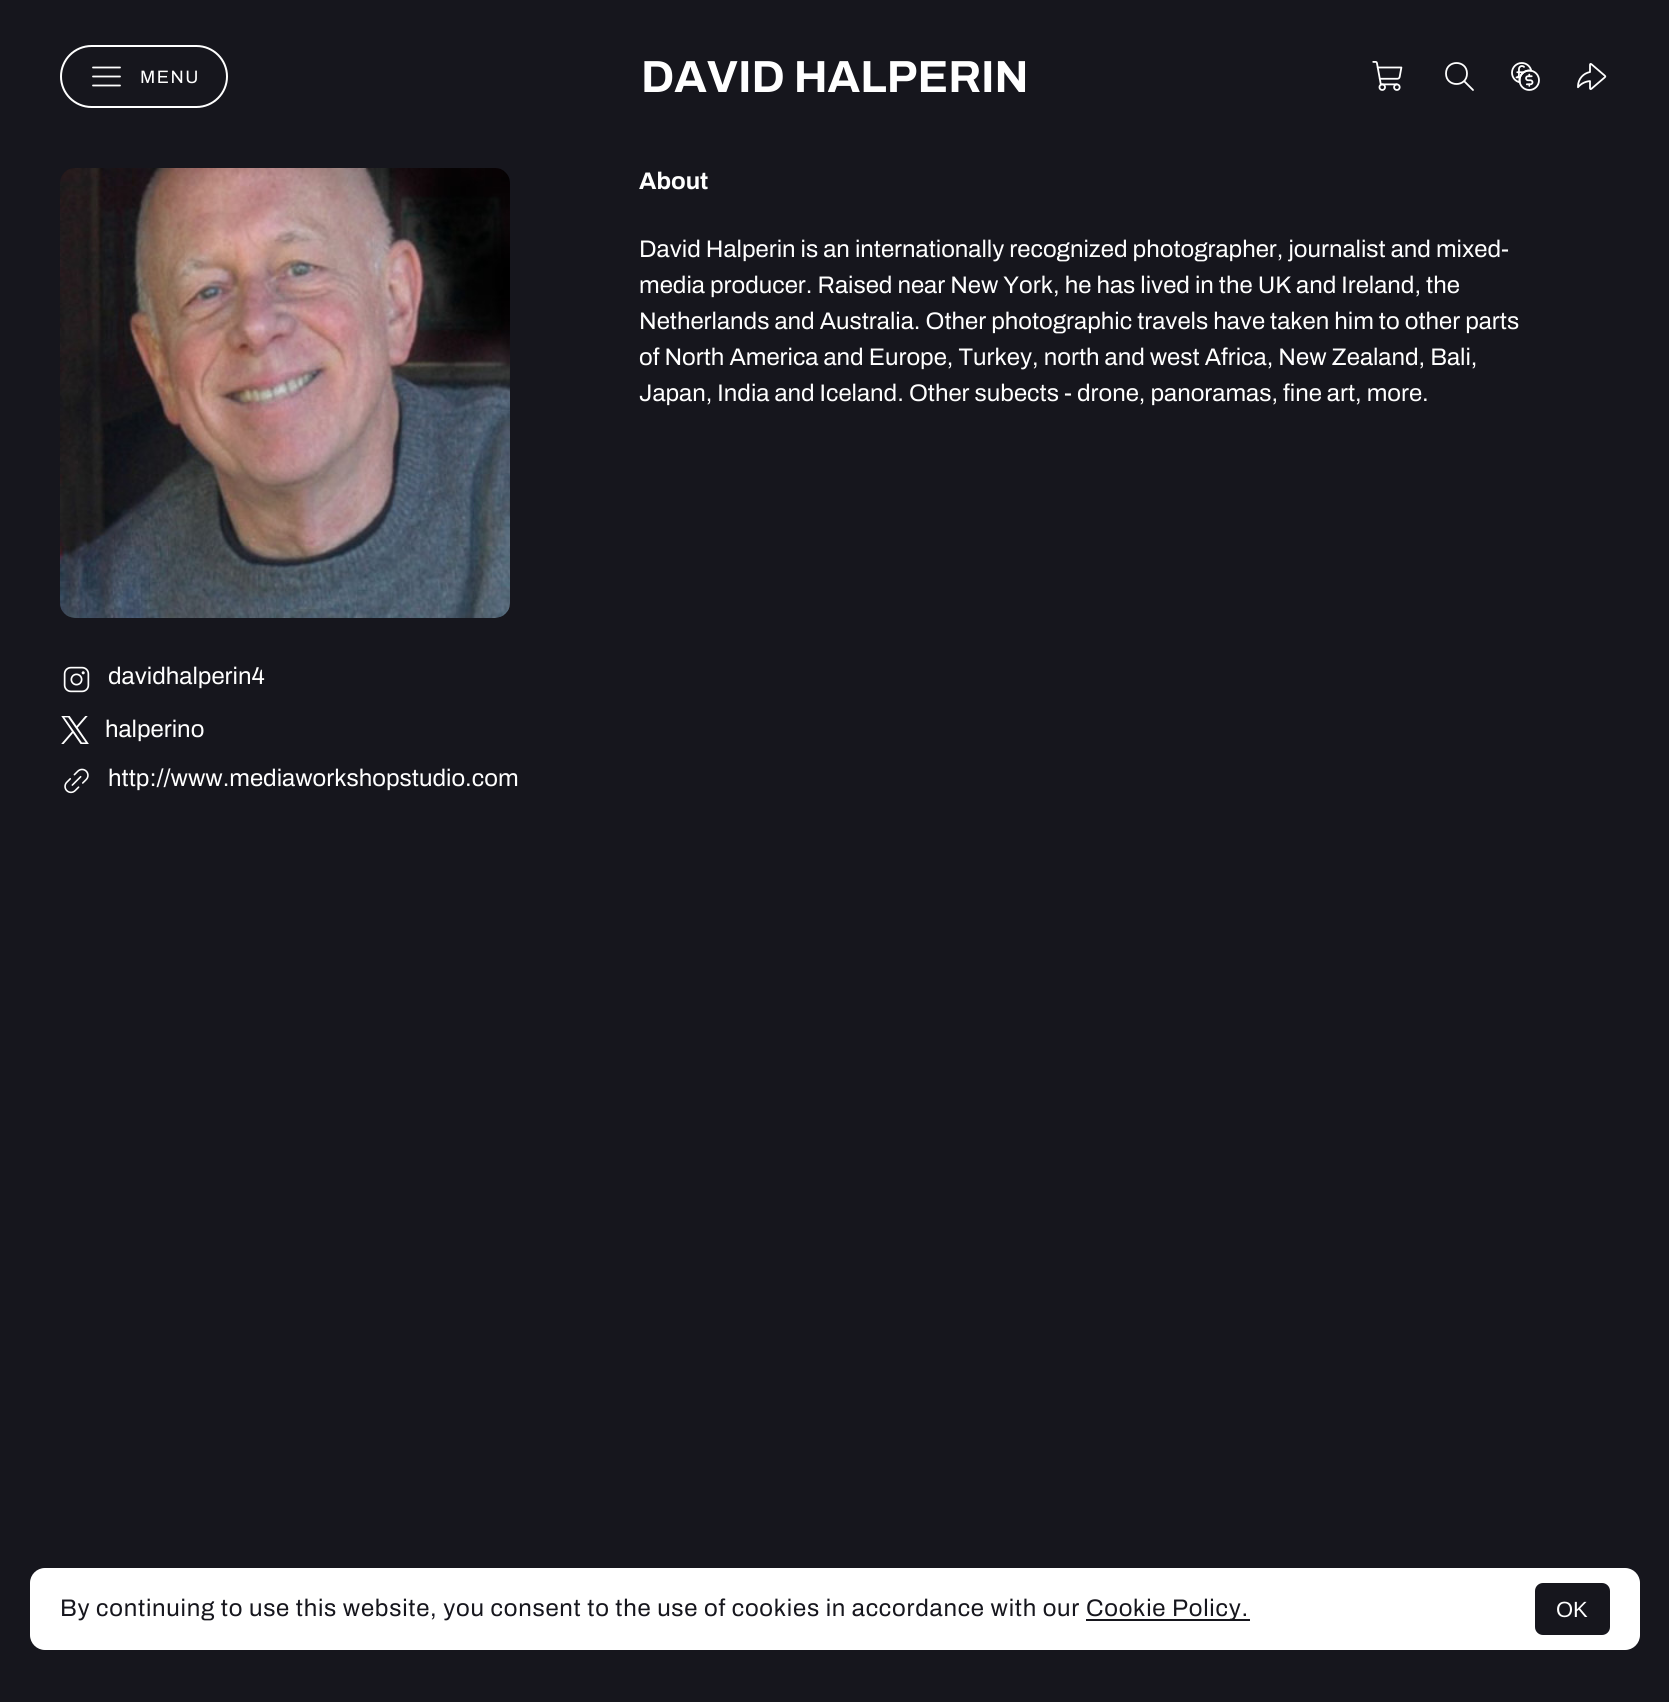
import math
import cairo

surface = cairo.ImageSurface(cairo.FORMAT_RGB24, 1669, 1702)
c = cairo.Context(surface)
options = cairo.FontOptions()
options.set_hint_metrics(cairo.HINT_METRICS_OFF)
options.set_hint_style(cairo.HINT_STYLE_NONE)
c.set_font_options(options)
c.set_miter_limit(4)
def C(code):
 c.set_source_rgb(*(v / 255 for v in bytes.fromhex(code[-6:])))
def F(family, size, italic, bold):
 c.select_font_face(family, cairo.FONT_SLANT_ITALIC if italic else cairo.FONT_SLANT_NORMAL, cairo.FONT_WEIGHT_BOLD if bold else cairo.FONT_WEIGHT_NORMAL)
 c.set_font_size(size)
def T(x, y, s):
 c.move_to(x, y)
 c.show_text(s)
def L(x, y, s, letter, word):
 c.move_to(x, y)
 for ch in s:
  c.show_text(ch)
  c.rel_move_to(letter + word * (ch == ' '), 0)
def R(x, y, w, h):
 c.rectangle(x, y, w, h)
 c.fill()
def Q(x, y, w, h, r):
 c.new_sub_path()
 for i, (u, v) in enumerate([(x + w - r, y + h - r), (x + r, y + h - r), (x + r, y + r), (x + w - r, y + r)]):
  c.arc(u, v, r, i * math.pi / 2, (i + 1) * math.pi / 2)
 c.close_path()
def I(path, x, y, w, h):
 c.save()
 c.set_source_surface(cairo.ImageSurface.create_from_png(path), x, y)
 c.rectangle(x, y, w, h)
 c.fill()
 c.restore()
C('16161d')
c.paint()
Q(61,46,166,61,30.5)
C('ffffff')
c.stroke()
c.new_path()
c.move_to(93,76.5)
c.line_to(120,76.5)
c.move_to(93,67.5)
c.line_to(120,67.5)
c.move_to(93,85.5)
c.line_to(120,85.5)
c.set_line_width(1.8)
c.set_line_cap(cairo.LINE_CAP_ROUND)
c.set_line_join(cairo.LINE_JOIN_ROUND)
c.stroke()
F('Archivo',18,0,0)
L(140,83,'MENU',1.5,0)
F('Archivo',45,0,1)
T(641,92,'DAVID HALPERIN')
I('1.png',1372,61,31,30)
c.new_path()
c.move_to(1473,90)
c.line_to(1464,81)
c.move_to(1467,73.5)
c.curve_to(1467,87.5,1446,87.5,1446,73.5)
c.curve_to(1446,59.5,1467,59.5,1467,73.5)
c.close_path()
c.stroke()
I('2.png',1511,62,29,29)
I('3.png',1577,63,30,27)
F('Archivo',24,0,1)
T(639,189,'About')
F('Archivo',24,0,0)
T(639,257,'David Halperin is an internationally recognized photographer, journalist and mixed-')
T(639,293,'media producer. Raised near New York, he has lived in the UK and Ireland, the')
T(639,329,'Netherlands and Australia. Other photographic travels have taken him to other parts')
T(639,365,'of North America and Europe, Turkey, north and west Africa, New Zealand, Bali,')
T(639,401,'Japan, India and Iceland. Other subects - drone, panoramas, fine art, more.')
I('4.png',60,168,450,450)
I('5.png',63,666,27,27)
T(108,684,'davidhalperin4')
I('6.png',61,716,28,28)
T(105,737,'halperino')
I('7.png',64,768,25,26)
T(108,786,'http://www.mediaworkshopstudio.com')
Q(30,1568,1610,82,15)
c.fill()
C('16161d')
L(60,1616,'By continuing to use this website, you consent to the use of cookies in accordance with our',.75,0)
R(1086,1619,164,2)
L(1086,1616,'Cookie Policy.',.75,0)
Q(1535,1583,75,52,8)
c.fill()
F('Liberation Sans',22,0,0)
C('ffffff')
T(1556,1617,'OK')
surface.write_to_png('o.png')
